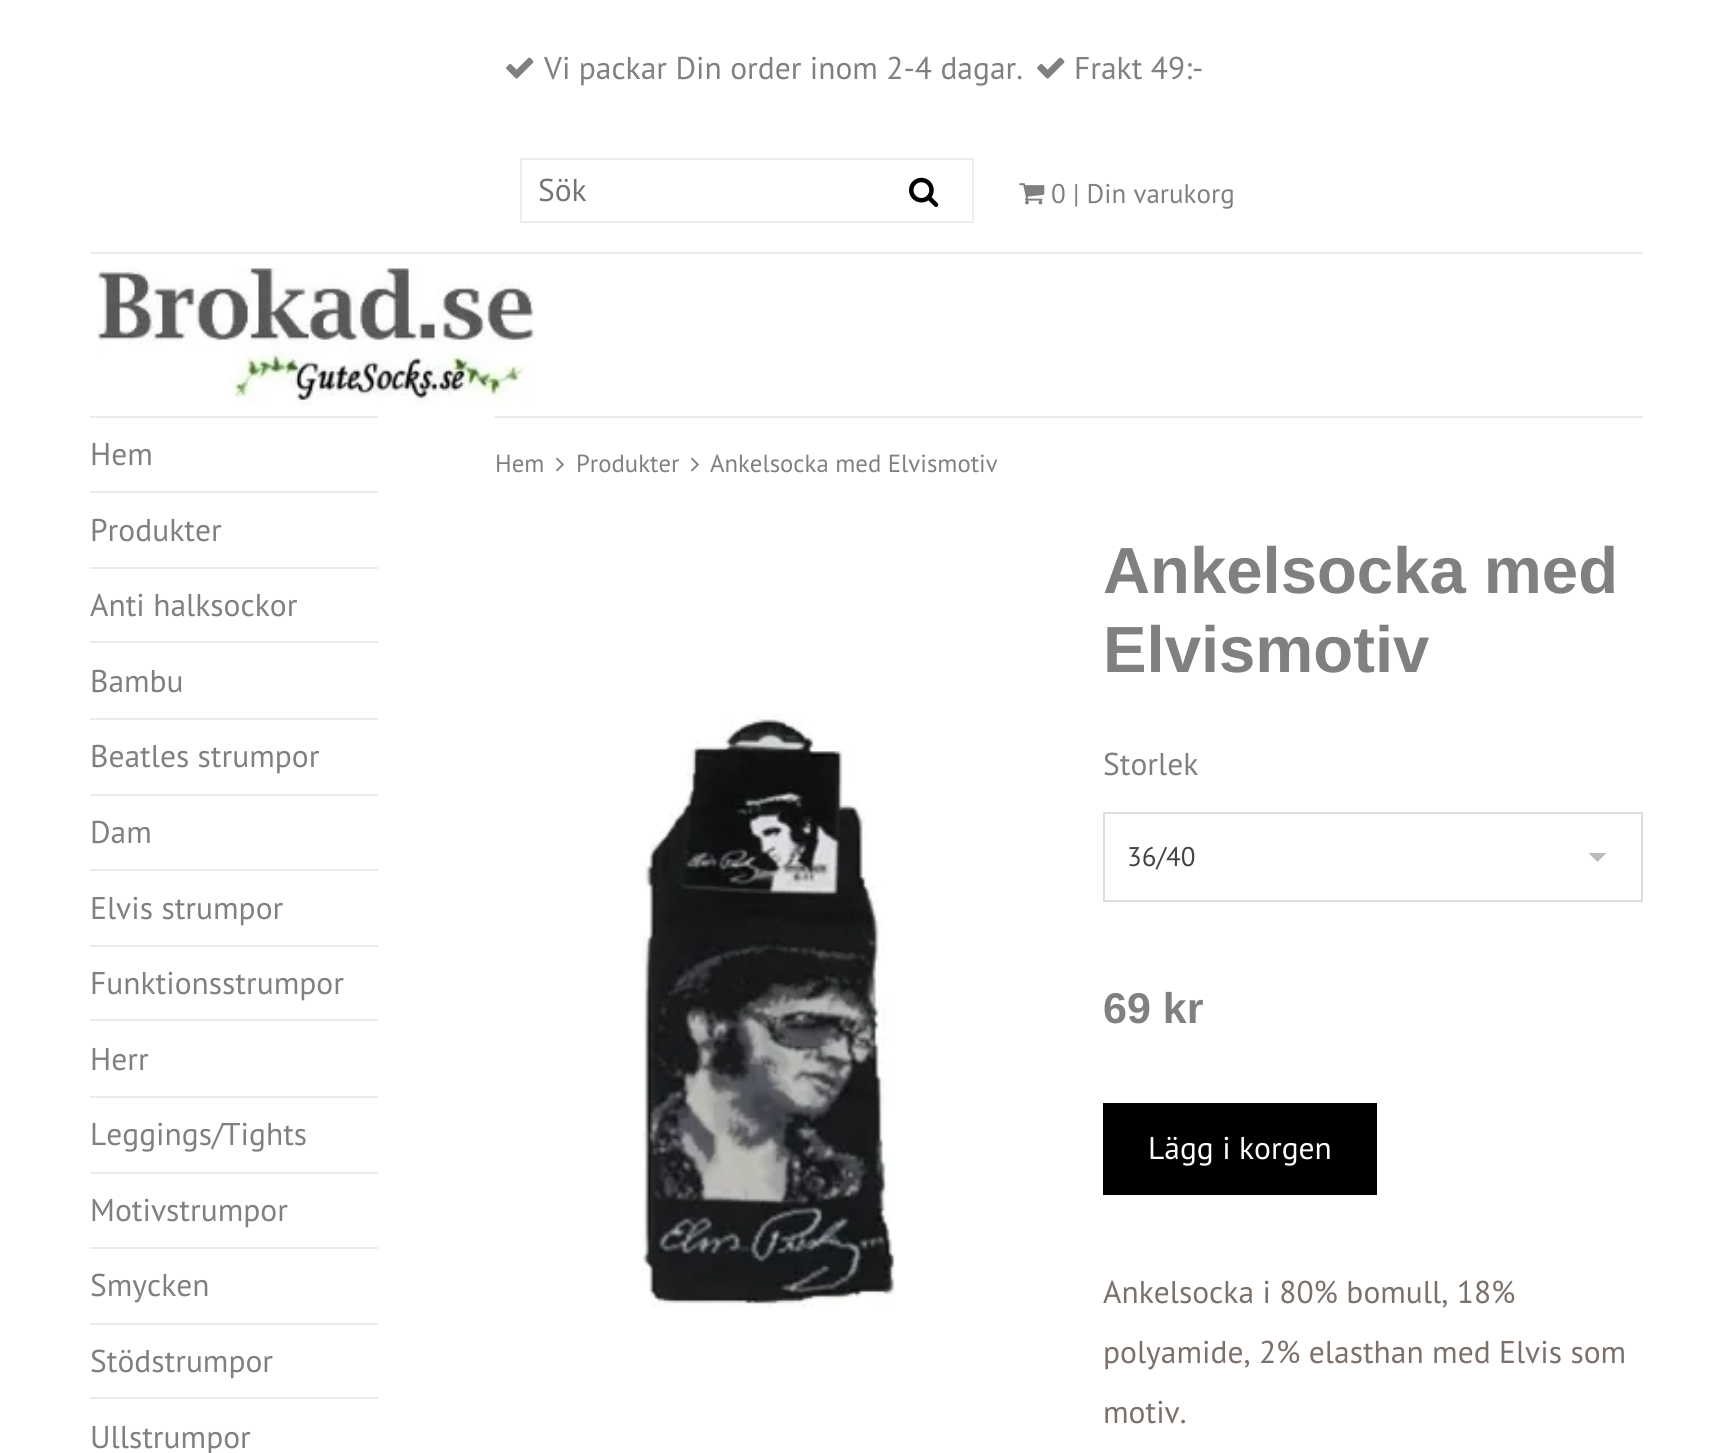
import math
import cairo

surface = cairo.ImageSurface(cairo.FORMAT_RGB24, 1732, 1453)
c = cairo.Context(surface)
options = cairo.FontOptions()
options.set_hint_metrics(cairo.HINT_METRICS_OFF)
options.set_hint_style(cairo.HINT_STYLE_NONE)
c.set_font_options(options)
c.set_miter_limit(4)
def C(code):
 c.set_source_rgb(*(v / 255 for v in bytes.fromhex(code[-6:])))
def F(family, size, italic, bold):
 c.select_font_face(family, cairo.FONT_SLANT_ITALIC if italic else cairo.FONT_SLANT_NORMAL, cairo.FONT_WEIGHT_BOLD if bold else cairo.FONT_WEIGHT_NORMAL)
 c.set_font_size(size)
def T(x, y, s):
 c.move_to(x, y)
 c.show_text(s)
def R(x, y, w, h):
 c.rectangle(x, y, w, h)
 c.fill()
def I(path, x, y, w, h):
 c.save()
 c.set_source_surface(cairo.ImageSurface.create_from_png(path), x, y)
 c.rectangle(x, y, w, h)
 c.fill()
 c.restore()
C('ffffff')
c.paint()
I('1.png',506,57,28,22)
F('PT Sans',31.5,0,0)
C('808080')
T(544,79,'Vi packar Din order inom 2-4 dagar.')
I('1.png',1037,57,28,22)
T(1074,79,'Frakt 49:-')
c.rectangle(521,159,452,63)
C('eeeeee')
c.stroke()
C('757575')
T(538,201,'Sök')
I('2.png',909,177,30,30)
I('3.png',1019,183,26,22)
F('PT Sans',27,0,0)
C('808080')
T(1051,203,'0 | Din varukorg')
C('eaeaea')
R(90,252,1553,2)
I('4.png',97,268,438,137)
R(90,416,288,2)
R(90,491,288,2)
F('PT Sans',31.5,0,0)
C('808080')
T(90,465,'Hem')
C('eaeaea')
R(90,567,288,2)
C('808080')
T(90,541,'Produkter')
C('eaeaea')
R(90,641,288,2)
C('808080')
T(90,616,'Anti halksockor')
C('eaeaea')
R(90,718,288,2)
C('808080')
T(90,692,'Bambu')
C('eaeaea')
R(90,794,288,2)
C('808080')
T(90,767,'Beatles strumpor')
C('eaeaea')
R(90,869,288,2)
C('808080')
T(90,843,'Dam')
C('eaeaea')
R(90,945,288,2)
C('808080')
T(90,919,'Elvis strumpor')
C('eaeaea')
R(90,1019,288,2)
C('808080')
T(90,994,'Funktionsstrumpor')
C('eaeaea')
R(90,1096,288,2)
C('808080')
T(90,1070,'Herr')
C('eaeaea')
R(90,1172,288,2)
C('808080')
T(90,1145,'Leggings/Tights')
C('eaeaea')
R(90,1247,288,2)
C('808080')
T(90,1221,'Motivstrumpor')
C('eaeaea')
R(90,1323,288,2)
C('808080')
T(90,1296,'Smycken')
C('eaeaea')
R(90,1397,288,2)
C('808080')
T(90,1372,'Stödstrumpor')
T(90,1448,'Ullstrumpor')
C('eaeaea')
R(495,416,1148,2)
F('PT Sans',24.75,0,0)
C('808080')
T(495,472,'Hem')
I('5.png',556,457,8,15)
T(576,472,'Produkter')
I('5.png',691,457,8,15)
T(710,472,'Ankelsocka med Elvismotiv')
I('6.png',641,714,254,594)
F('Arimo',65.25,0,1)
T(1103,593,'Ankelsocka med')
T(1103,672,'Elvismotiv')
F('PT Sans',31.5,0,0)
T(1103,775,'Storlek')
c.rectangle(1104,813,538,88)
C('dddddd')
c.stroke()
F('PT Sans',27,0,0)
C('444444')
T(1127,866,'36/40')
C('bbbbbb')
c.new_path()
c.move_to(1588.5,853)
c.line_to(1606.5,853)
c.line_to(1597.5,862)
c.close_path()
c.fill()
F('Arimo',43,0,1)
C('808080')
T(1103,1023,'69 kr')
C('000000')
R(1103,1103,274,92)
F('PT Sans',31.5,0,0)
C('ffffff')
T(1148,1159,'Lägg i korgen')
C('7c706b')
T(1103,1303,'Ankelsocka i 80% bomull, 18%')
T(1103,1363,'polyamide, 2% elasthan med Elvis som')
T(1103,1423,'motiv.')
surface.write_to_png('o.png')
